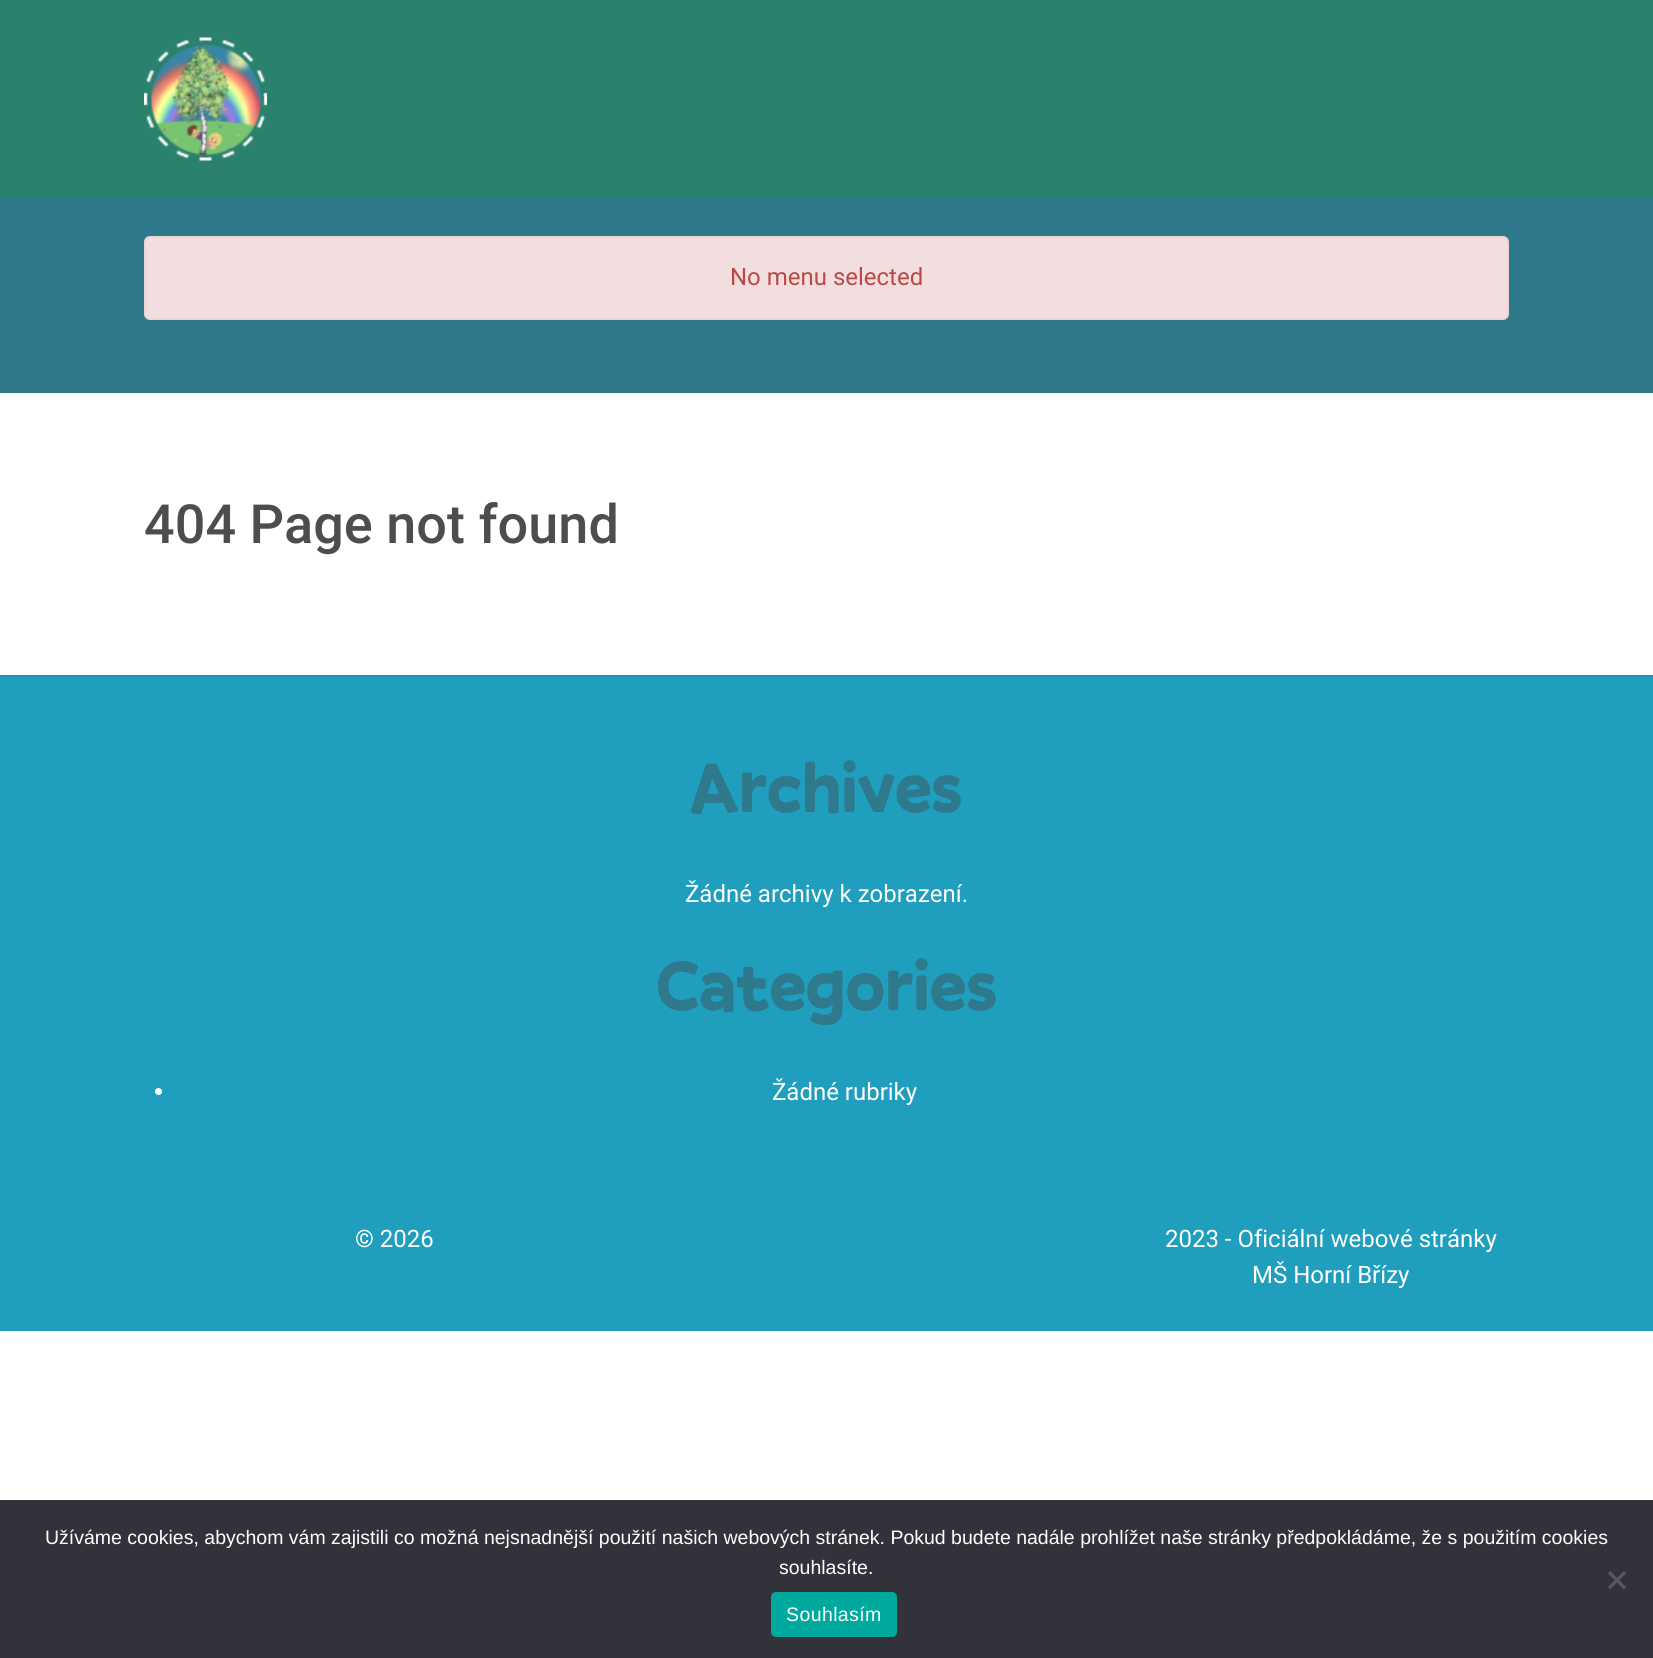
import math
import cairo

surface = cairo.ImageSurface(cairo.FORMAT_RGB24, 1653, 1658)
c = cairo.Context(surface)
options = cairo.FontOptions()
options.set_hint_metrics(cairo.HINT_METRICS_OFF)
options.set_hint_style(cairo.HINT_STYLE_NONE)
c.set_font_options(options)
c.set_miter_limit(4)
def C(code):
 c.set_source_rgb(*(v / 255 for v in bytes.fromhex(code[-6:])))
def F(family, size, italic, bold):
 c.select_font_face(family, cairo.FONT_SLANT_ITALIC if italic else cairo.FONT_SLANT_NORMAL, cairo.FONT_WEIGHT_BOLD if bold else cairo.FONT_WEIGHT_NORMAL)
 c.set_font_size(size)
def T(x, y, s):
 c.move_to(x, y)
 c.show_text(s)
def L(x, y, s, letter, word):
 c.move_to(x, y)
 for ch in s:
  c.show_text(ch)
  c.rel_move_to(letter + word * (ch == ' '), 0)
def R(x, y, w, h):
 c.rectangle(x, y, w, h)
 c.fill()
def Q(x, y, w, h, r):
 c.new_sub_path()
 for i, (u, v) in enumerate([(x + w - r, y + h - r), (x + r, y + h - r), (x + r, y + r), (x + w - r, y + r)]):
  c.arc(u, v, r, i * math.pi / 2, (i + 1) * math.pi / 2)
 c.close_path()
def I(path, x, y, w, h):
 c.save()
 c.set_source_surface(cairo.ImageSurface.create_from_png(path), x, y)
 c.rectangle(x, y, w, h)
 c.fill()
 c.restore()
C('ffffff')
c.paint()
C('2a816d')
R(0,0,1653,198)
I('1.png',144,37,123,124)
C('2f798d')
R(0,198,1653,195)
C('f2dede')
Q(145,237,1363,82,5)
c.fill_preserve()
C('eed3d7')
c.stroke()
F('Roboto',24,0,0)
C('b94a48')
T(730,285,'No menu selected')
F('Roboto Medium',54,0,0)
C('4d4d4d')
T(144,543,'404 Page not found')
C('1f9ebe')
R(0,677,1653,654)
C('1d96b5')
R(0,675,1653,2)
F('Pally',72,0,1)
C('2f798d')
T(690,812,'Archives')
F('Roboto',24,0,0)
C('ffffff')
T(685,902,'Žádné archivy k zobrazení.')
F('Pally',72,0,1)
C('2f798d')
T(656,1010,'Categories')
C('ffffff')
c.new_path()
c.arc(158.5,1091.5,3.5,0,2 * math.pi)
c.fill()
F('Roboto',24,0,0)
T(772,1100,'Žádné rubriky')
T(355,1247,'© 2026')
T(1165,1247,'2023 - Oficiální webové stránky')
T(1252,1283,'MŠ Horní Břízy')
C('32323a')
R(0,1500,1653,158)
F('Liberation Sans',19.5,0,0)
C('ffffff')
T(45,1544,'Užíváme cookies, abychom vám zajistili co možná nejsnadnější použití našich webových stránek. Pokud budete nadále prohlížet naše stránky předpokládáme, že s použitím cookies')
T(779,1574,'souhlasíte.')
C('59595d')
c.new_path()
c.move_to(1624,1571)
c.line_to(1626,1573.5)
c.line_to(1610,1589.5)
c.line_to(1608,1587)
c.close_path()
c.fill()
c.new_path()
c.move_to(1608,1573.5)
c.line_to(1610,1571)
c.line_to(1626,1587)
c.line_to(1624,1589.5)
c.close_path()
c.fill()
C('00a99d')
Q(771,1592,126,45,5)
c.fill()
C('ffffff')
L(786,1621,'Souhlasím',.4,0)
surface.write_to_png('o.png')
